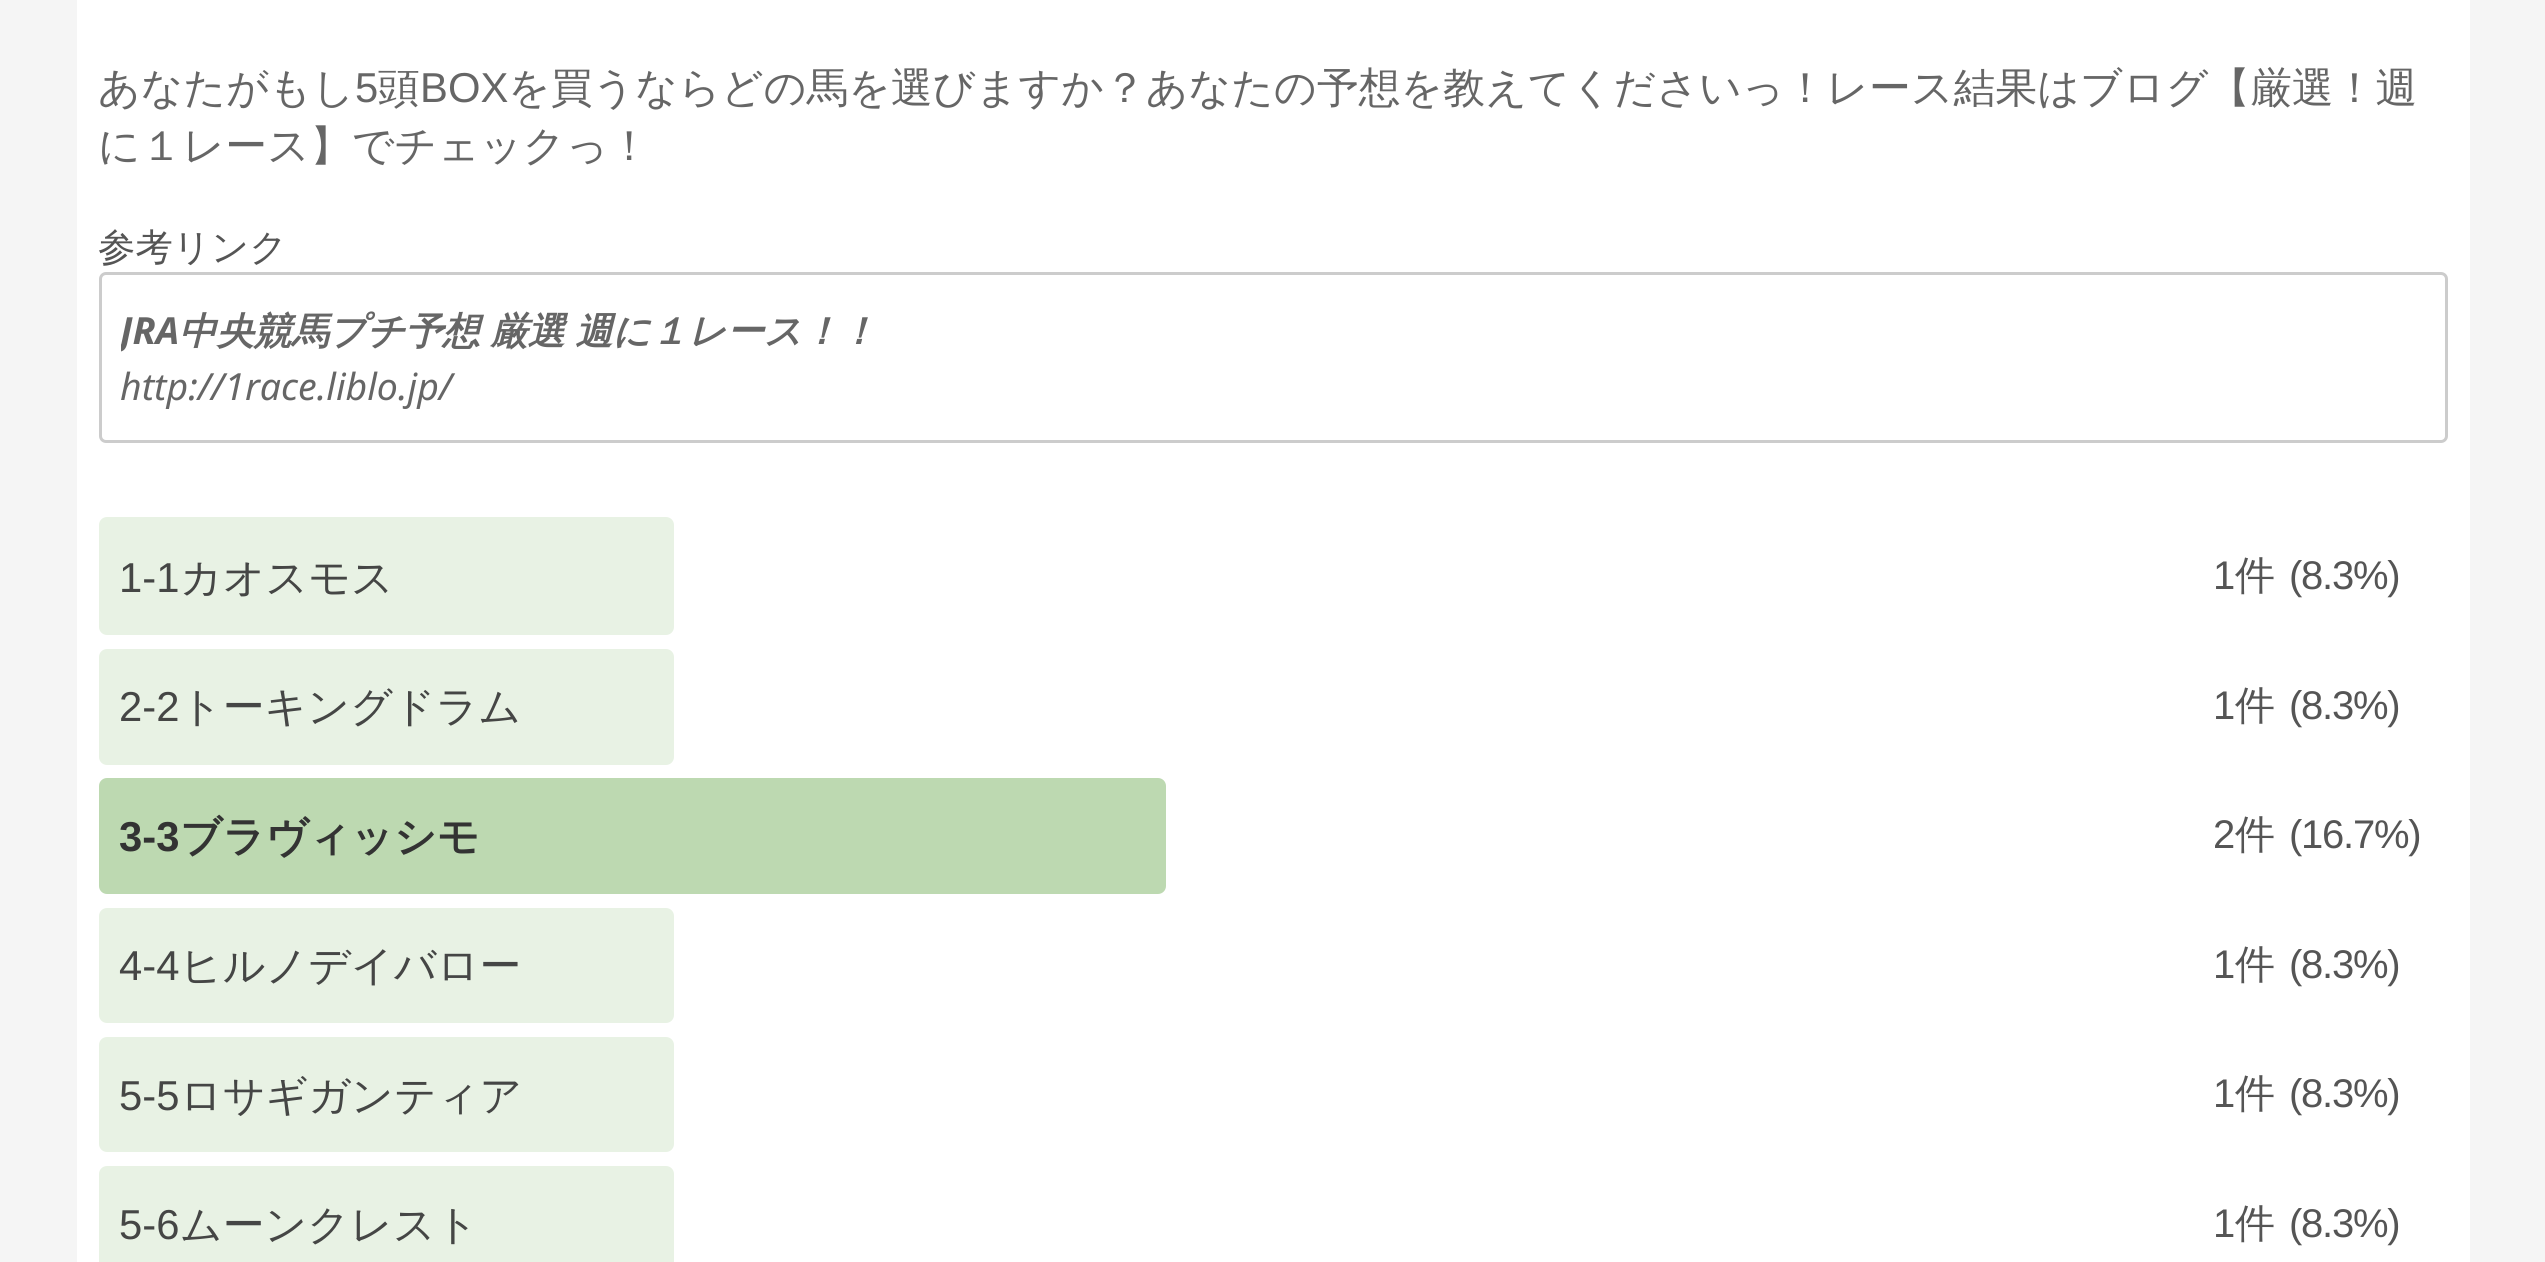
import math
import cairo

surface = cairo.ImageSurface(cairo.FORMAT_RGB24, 2545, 1262)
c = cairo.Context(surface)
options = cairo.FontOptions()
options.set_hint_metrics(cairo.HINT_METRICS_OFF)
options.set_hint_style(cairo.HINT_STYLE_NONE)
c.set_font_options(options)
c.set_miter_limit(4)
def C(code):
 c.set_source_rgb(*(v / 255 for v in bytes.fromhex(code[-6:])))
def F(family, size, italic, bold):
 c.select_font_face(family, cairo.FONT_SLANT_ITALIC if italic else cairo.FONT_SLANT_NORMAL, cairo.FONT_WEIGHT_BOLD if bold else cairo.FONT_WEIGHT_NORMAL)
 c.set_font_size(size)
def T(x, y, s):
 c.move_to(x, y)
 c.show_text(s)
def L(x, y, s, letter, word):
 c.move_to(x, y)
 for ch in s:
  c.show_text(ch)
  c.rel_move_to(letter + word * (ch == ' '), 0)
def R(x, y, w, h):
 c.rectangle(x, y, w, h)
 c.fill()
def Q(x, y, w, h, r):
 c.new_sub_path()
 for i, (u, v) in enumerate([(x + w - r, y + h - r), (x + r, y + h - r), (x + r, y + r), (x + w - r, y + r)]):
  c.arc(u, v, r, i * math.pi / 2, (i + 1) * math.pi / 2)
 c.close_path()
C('f5f5f5')
c.paint()
C('ffffff')
R(77,0,2393,1262)
F('WenQuanYi Zen Hei Medium',41.8,0,0)
C('666666')
T(98,102,'あなたがもし')
F('Liberation Sans',41.8,0,0)
T(355,102,'5')
F('WenQuanYi Zen Hei Medium',41.8,0,0)
T(378,102,'頭')
F('Liberation Sans',41.8,0,0)
T(420,102,'BOX')
F('WenQuanYi Zen Hei Medium',41.8,0,0)
T(508,102,'を買うならどの馬を選びますか？あなたの予想を教えてくださいっ！レース結果はブログ【厳選！週')
T(98,160,'に１レース】でチェックっ！')
F('WenQuanYi Zen Hei Medium',37.4,0,0)
C('555555')
T(98,260,'参考リンク')
Q(100.5,273.5,2346,168,5.5)
C('cccccc')
c.set_line_width(3)
c.stroke()
c.save()
c.rectangle(121,303,2305,55)
c.clip()
F('Noto Sans',37.4,1,1)
C('666666')
T(120,344,'JRA')
c.restore()
F('WenQuanYi Zen Hei',37.4,1,1)
C('666666')
L(179,344,'中央競馬プチ予想 厳選 週に１レース！！',0,-1)
F('Noto Sans',37.4,1,0)
T(120,400,'http://1race.liblo.jp/')
C('e8f2e4')
Q(99,517,575,118,8)
c.fill()
F('Liberation Sans',41.8,0,0)
C('454645')
T(119,592,'1-1')
F('WenQuanYi Zen Hei Medium',41.8,0,0)
T(180,592,'カオスモス')
F('Liberation Sans',40,0,0)
C('555555')
T(2213,589,'1')
F('WenQuanYi Zen Hei Medium',40,0,0)
T(2235,589,'件')
F('Liberation Sans',40,0,0)
L(2289,589,'(8.3%)',-1.25,0)
C('e8f2e4')
Q(99,649,575,116,8)
c.fill()
F('Liberation Sans',41.8,0,0)
C('454645')
T(119,721,'2-2')
F('WenQuanYi Zen Hei Medium',41.8,0,0)
T(180,721,'トーキングドラム')
F('Liberation Sans',40,0,0)
C('555555')
T(2213,719,'1')
F('WenQuanYi Zen Hei Medium',40,0,0)
T(2235,719,'件')
F('Liberation Sans',40,0,0)
L(2289,719,'(8.3%)',-1.25,0)
C('bdd9b1')
Q(99,778,1067,116,8)
c.fill()
F('Liberation Sans',41.8,0,1)
C('333333')
T(119,851,'3-3')
F('WenQuanYi Zen Hei',41.8,0,1)
T(180,851,'ブラヴィッシモ')
F('Liberation Sans',40,0,0)
C('555555')
T(2213,848,'2')
F('WenQuanYi Zen Hei Medium',40,0,0)
T(2235,848,'件')
F('Liberation Sans',40,0,0)
L(2289,848,'(16.7%)',-1.25,0)
C('e8f2e4')
Q(99,908,575,115,8)
c.fill()
F('Liberation Sans',41.8,0,0)
C('454645')
T(119,980,'4-4')
F('WenQuanYi Zen Hei Medium',41.8,0,0)
T(180,980,'ヒルノデイバロー')
F('Liberation Sans',40,0,0)
C('555555')
T(2213,978,'1')
F('WenQuanYi Zen Hei Medium',40,0,0)
T(2235,978,'件')
F('Liberation Sans',40,0,0)
L(2289,978,'(8.3%)',-1.25,0)
C('e8f2e4')
Q(99,1037,575,115,8)
c.fill()
F('Liberation Sans',41.8,0,0)
C('454645')
T(119,1110,'5-5')
F('WenQuanYi Zen Hei Medium',41.8,0,0)
T(180,1110,'ロサギガンティア')
F('Liberation Sans',40,0,0)
C('555555')
T(2213,1107,'1')
F('WenQuanYi Zen Hei Medium',40,0,0)
T(2235,1107,'件')
F('Liberation Sans',40,0,0)
L(2289,1107,'(8.3%)',-1.25,0)
C('e8f2e4')
Q(99,1166,575,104,8)
c.fill()
F('Liberation Sans',41.8,0,0)
C('454645')
T(119,1239,'5-6')
F('WenQuanYi Zen Hei Medium',41.8,0,0)
T(180,1239,'ムーンクレスト')
F('Liberation Sans',40,0,0)
C('555555')
T(2213,1237,'1')
F('WenQuanYi Zen Hei Medium',40,0,0)
T(2235,1237,'件')
F('Liberation Sans',40,0,0)
L(2289,1237,'(8.3%)',-1.25,0)
surface.write_to_png('o.png')
